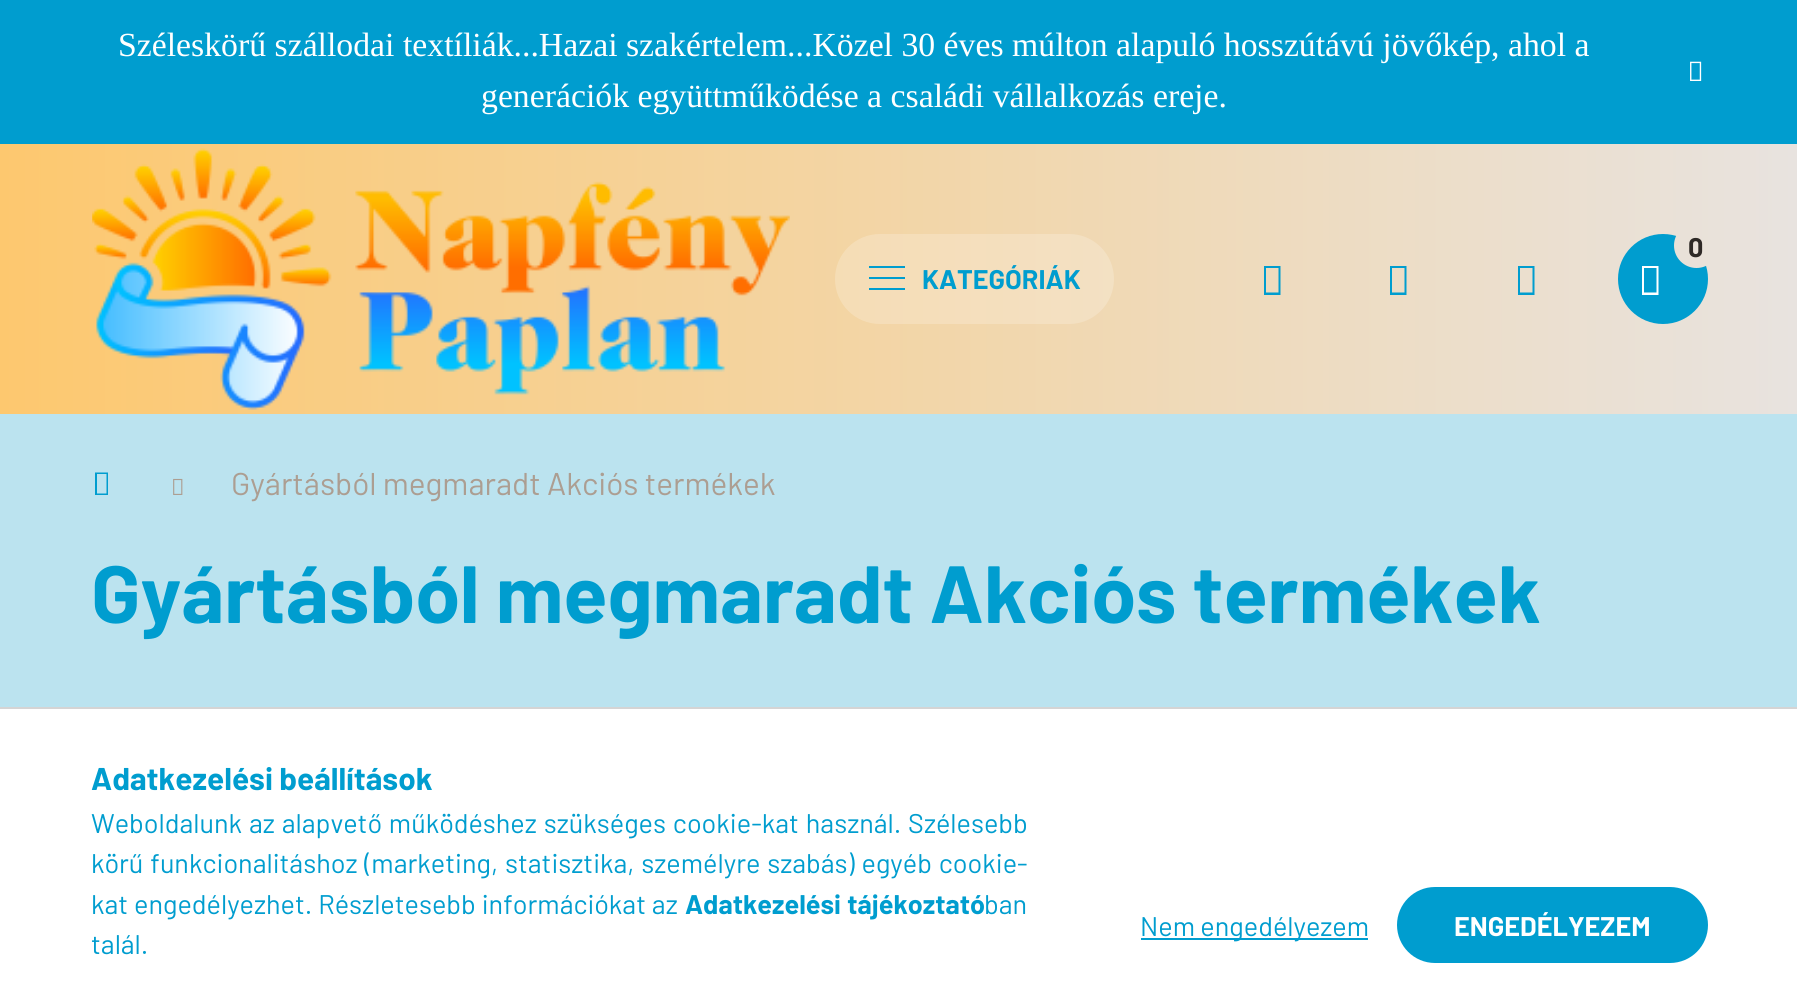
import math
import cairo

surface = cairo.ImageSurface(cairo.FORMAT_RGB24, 1797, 1008)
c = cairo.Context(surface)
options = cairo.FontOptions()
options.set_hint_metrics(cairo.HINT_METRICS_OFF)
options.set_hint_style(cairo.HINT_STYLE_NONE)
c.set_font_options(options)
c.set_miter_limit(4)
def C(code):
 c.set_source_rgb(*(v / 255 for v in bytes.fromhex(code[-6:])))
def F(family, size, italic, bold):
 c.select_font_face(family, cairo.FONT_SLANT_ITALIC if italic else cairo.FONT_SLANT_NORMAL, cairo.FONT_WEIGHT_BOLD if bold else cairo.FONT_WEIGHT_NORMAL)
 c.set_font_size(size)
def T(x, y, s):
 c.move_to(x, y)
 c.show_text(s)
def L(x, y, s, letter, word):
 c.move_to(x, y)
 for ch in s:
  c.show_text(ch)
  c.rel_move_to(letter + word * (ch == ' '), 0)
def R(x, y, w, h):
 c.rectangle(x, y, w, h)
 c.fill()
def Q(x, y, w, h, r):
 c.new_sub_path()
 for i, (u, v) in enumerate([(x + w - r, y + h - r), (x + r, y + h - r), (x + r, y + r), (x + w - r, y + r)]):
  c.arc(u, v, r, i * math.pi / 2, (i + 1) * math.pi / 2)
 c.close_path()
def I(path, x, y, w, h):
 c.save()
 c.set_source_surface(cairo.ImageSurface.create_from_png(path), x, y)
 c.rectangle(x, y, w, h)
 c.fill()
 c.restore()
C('bbe3ef')
c.paint()
C('009dcf')
R(0,0,1797,144)
F('Liberation Serif',33.75,0,0)
C('ffffff')
T(118,56,'Széleskörű szállodai textíliák...Hazai szakértelem...Közel 30 éves múlton alapuló hosszútávú jövőkép, ahol a')
T(481,107,'generációk együttműködése a családi vállalkozás ereje.')
I('1.png',1690,61,12,20)
gradient = cairo.LinearGradient(0,504,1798,504)
gradient.add_color_stop_rgba(0,0.992,0.784,0.435,1)
gradient.add_color_stop_rgba(1,0.91,0.89,0.875,1)
c.set_source(gradient)
R(0,144,1797,270)
C('009dcf')
c.arc(1663,279,45,0,2 * math.pi)
c.fill()
gradient = cairo.LinearGradient(0,504,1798,504)
gradient.add_color_stop_rgba(0,0.992,0.784,0.435,1)
gradient.add_color_stop_rgba(1,0.91,0.89,0.875,1)
c.set_source(gradient)
c.arc(1696.5,245.5,22.5,0,2 * math.pi)
c.fill()
F('Barlow',27,0,1)
C('2e2926')
T(1688,257,'0')
C('ffffff')
c.new_path()
c.move_to(1642,295)
c.line_to(1642,266)
c.line_to(1658.5,266)
c.line_to(1658.5,295)
c.close_path()
c.move_to(1644,292.5)
c.line_to(1656.5,292.5)
c.line_to(1656.5,268)
c.line_to(1644,268)
c.close_path()
c.fill()
C('009dcf')
c.new_path()
c.move_to(1264,295)
c.line_to(1264,266)
c.line_to(1280.5,266)
c.line_to(1280.5,295)
c.close_path()
c.move_to(1266,292.5)
c.line_to(1278.5,292.5)
c.line_to(1278.5,268)
c.line_to(1266,268)
c.close_path()
c.fill()
c.new_path()
c.move_to(1390,295)
c.line_to(1390,266)
c.line_to(1406.5,266)
c.line_to(1406.5,295)
c.close_path()
c.move_to(1392,292.5)
c.line_to(1404.5,292.5)
c.line_to(1404.5,268)
c.line_to(1392,268)
c.close_path()
c.fill()
c.new_path()
c.move_to(1518,295)
c.line_to(1518,266)
c.line_to(1534.5,266)
c.line_to(1534.5,295)
c.close_path()
c.move_to(1520,292.5)
c.line_to(1532.5,292.5)
c.line_to(1532.5,268)
c.line_to(1520,268)
c.close_path()
c.fill()
I('2.png',92,148,698,262)
c.set_source_rgba(1,1,1,0.2)
Q(835,234,279,90,45)
c.fill()
C('009dcf')
R(869,266,36,2)
R(869,277,36,2)
R(869,288,36,2)
T(922,289,'KATEGÓRIÁK')
c.new_path()
c.move_to(95,495)
c.line_to(95,472.5)
c.line_to(108,472.5)
c.line_to(108,495)
c.close_path()
c.move_to(97,493.5)
c.line_to(106.5,493.5)
c.line_to(106.5,474)
c.line_to(97,474)
c.close_path()
c.fill()
I('3.png',173,478,10,17)
F('Barlow',31.5,0,0)
C('ac9e92')
T(231,495,'Gyártásból megmaradt Akciós termékek')
F('Barlow',81,0,1)
C('009dcf')
T(91,623,'Gyártásból megmaradt Akciós termékek')
C('ffffff')
R(0,709,1797,299)
C('d5d4d4')
R(0,707,1797,2)
F('Barlow',31.5,0,1)
C('009dcf')
T(91,790,'Adatkezelési beállítások')
F('Barlow',27,0,0)
L(91,833,'Weboldalunk az alapvető működéshez szükséges cookie-kat használ. Szélesebb',0,1.5)
L(91,873,'körű funkcionalitáshoz (marketing, statisztika, személyre szabás) egyéb cookie-',0,1.5)
L(91,914,'kat engedélyezhet. Részletesebb információkat az',0,.5)
F('Barlow',27,0,1)
L(685,914,'Adatkezelési tájékoztató',0,1)
F('Barlow',27,0,0)
T(984,914,'ban')
T(91,954,'talál.')
R(1141,938,227,2)
T(1140,936,'Nem engedélyezem')
gradient = cairo.LinearGradient(1397,925,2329,925)
gradient.add_color_stop_rgba(.33,0,0.616,0.812,1)
gradient.add_color_stop_rgba(.67,0.8,0.733,0.678,1)
c.set_source(gradient)
Q(1397,887,311,76,38)
c.fill()
F('Barlow',27,0,1)
C('ffffff')
T(1454,936,'ENGEDÉLYEZEM')
surface.write_to_png('o.png')
